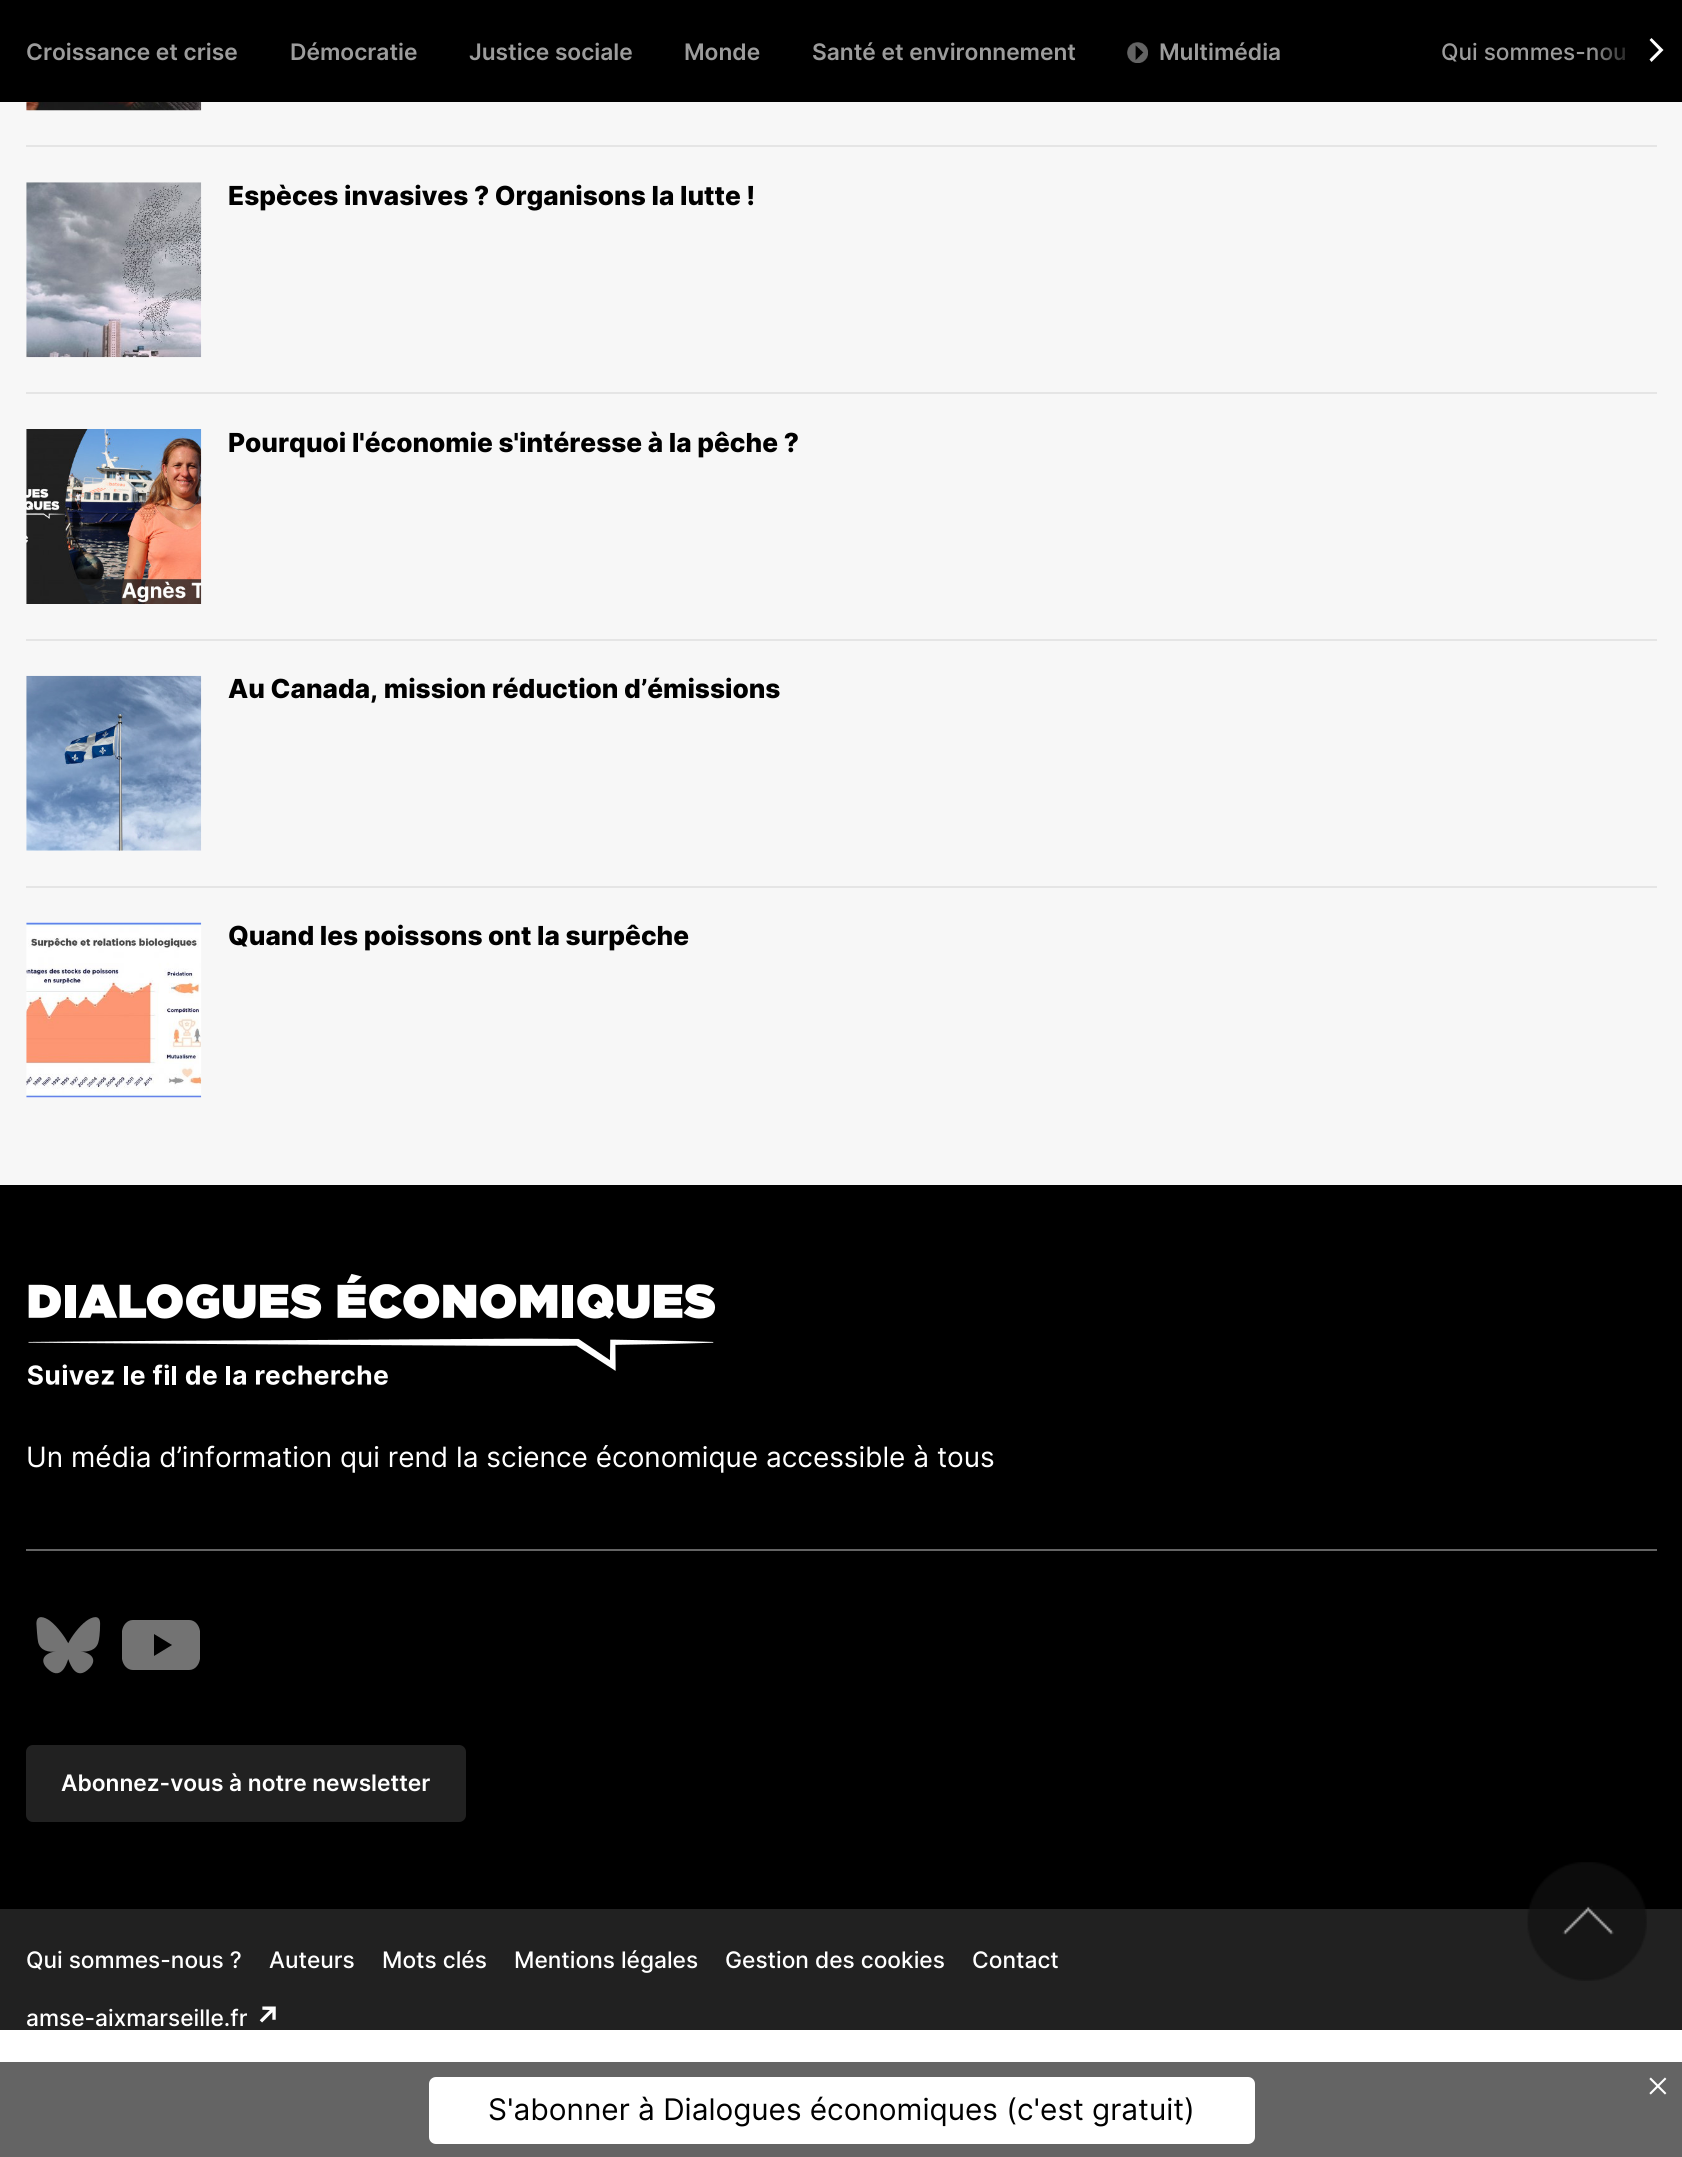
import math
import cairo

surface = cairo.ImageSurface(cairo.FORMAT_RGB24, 1682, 2157)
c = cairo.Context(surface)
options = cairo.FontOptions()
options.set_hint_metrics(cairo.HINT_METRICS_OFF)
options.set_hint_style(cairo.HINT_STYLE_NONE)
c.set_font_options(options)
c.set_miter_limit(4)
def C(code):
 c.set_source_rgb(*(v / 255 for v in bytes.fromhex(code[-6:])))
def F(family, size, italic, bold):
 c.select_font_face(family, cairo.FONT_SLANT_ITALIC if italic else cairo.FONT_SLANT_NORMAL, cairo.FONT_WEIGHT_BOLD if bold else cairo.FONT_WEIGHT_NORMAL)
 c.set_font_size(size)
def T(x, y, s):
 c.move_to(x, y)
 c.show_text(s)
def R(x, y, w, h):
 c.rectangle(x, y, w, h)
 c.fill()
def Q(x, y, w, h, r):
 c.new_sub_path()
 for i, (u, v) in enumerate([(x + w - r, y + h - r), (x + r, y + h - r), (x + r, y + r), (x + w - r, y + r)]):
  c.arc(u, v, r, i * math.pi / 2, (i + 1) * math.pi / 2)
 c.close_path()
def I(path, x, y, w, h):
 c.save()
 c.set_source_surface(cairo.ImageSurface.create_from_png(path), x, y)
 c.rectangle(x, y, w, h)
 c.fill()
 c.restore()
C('ffffff')
c.paint()
C('000000')
R(0,0,1682,102)
F('Inter SemiBold',22.75,0,0)
C('9c9c9c')
T(26,60,'Croissance et crise')
T(290,60,'Démocratie')
T(469,60,'Justice sociale')
T(684,60,'Monde')
T(812,60,'Santé et environnement')
I('1.png',1127,42,21,21)
T(1159,60,'Multimédia')
F('Inter Medium',22.75,0,0)
T(1441,60,'Qui sommes-nou')
gradient = cairo.LinearGradient(1591,50,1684,50)
gradient.add_color_stop_rgba(0,0,0,0,0)
gradient.add_color_stop_rgba(.51,0,0,0,1)
gradient.add_color_stop_rgba(1,0,0,0,1)
c.set_source(gradient)
R(1592,47,34,14)
C('ffffff')
c.new_path()
c.move_to(1651.5,62)
c.line_to(1649.5,59.5)
c.line_to(1659,50)
c.line_to(1649.5,40)
c.line_to(1651.5,38)
c.line_to(1663.5,50)
c.close_path()
c.fill()
C('f7f7f7')
R(0,102,1682,1083)
I('2.png',26,102,176,9)
C('e5e5e5')
R(26,145,1631,2)
I('3.png',26,182,176,176)
F('Inter ExtraBold',26.25,0,0)
C('000000')
T(228,205,'Espèces invasives ? Organisons la lutte !')
C('e5e5e5')
R(26,392,1631,2)
I('4.png',26,429,176,175)
C('000000')
T(228,452,'Pourquoi l\'économie s\'intéresse à la pêche ?')
C('e5e5e5')
R(26,639,1631,2)
I('5.png',26,675,176,176)
C('000000')
T(228,698,'Au Canada, mission réduction d’émissions')
C('e5e5e5')
R(26,886,1631,2)
I('6.png',26,922,176,176)
C('000000')
T(228,945,'Quand les poissons ont la surpêche')
R(0,1185,1682,724)
C('646464')
R(26,1549,1631,2)
I('7.png',27,1273,689,112)
F('inter',28,0,0)
C('ffffff')
T(26,1467,'Un média d’information qui rend la science économique accessible à tous')
I('8.png',36,1617,65,57)
C('737373')
c.new_path()
c.move_to(189,1620)
c.line_to(133,1620)
c.curve_to(127,1620,123,1625,122,1631)
c.line_to(122,1659)
c.curve_to(123,1665,127,1670,133,1670)
c.line_to(189,1670)
c.curve_to(195,1670,199,1665,200,1659)
c.line_to(200,1631)
c.curve_to(199,1625,195,1620,189,1620)
c.close_path()
c.move_to(154,1656)
c.line_to(154,1634)
c.line_to(172,1645)
c.close_path()
c.fill()
C('212121')
Q(26,1745,440,77,7)
c.fill()
F('Inter SemiBold',22.75,0,0)
C('ffffff')
T(61,1791,'Abonnez-vous à notre newsletter')
C('212121')
R(0,1909,1682,121)
F('Inter Medium',22.75,0,0)
C('ffffff')
T(26,1968,'Qui sommes-nous ?')
T(269,1968,'Auteurs')
T(382,1968,'Mots clés')
T(514,1968,'Mentions légales')
T(725,1968,'Gestion des cookies')
T(972,1968,'Contact')
T(26,2026,'amse-aixmarseille.fr')
I('9.png',259,2006,17,17)
I('10.png',1527,1862,120,119)
C('646464')
R(0,2062,1682,95)
F('Liberation Serif',42,0,0)
C('ffffff')
T(1646,2100,'×')
Q(429,2077,826,67,7)
c.fill()
F('inter',29.75,0,0)
C('000000')
T(488,2120,'S\'abonner à Dialogues économiques (c\'est gratuit)')
surface.write_to_png('o.png')
